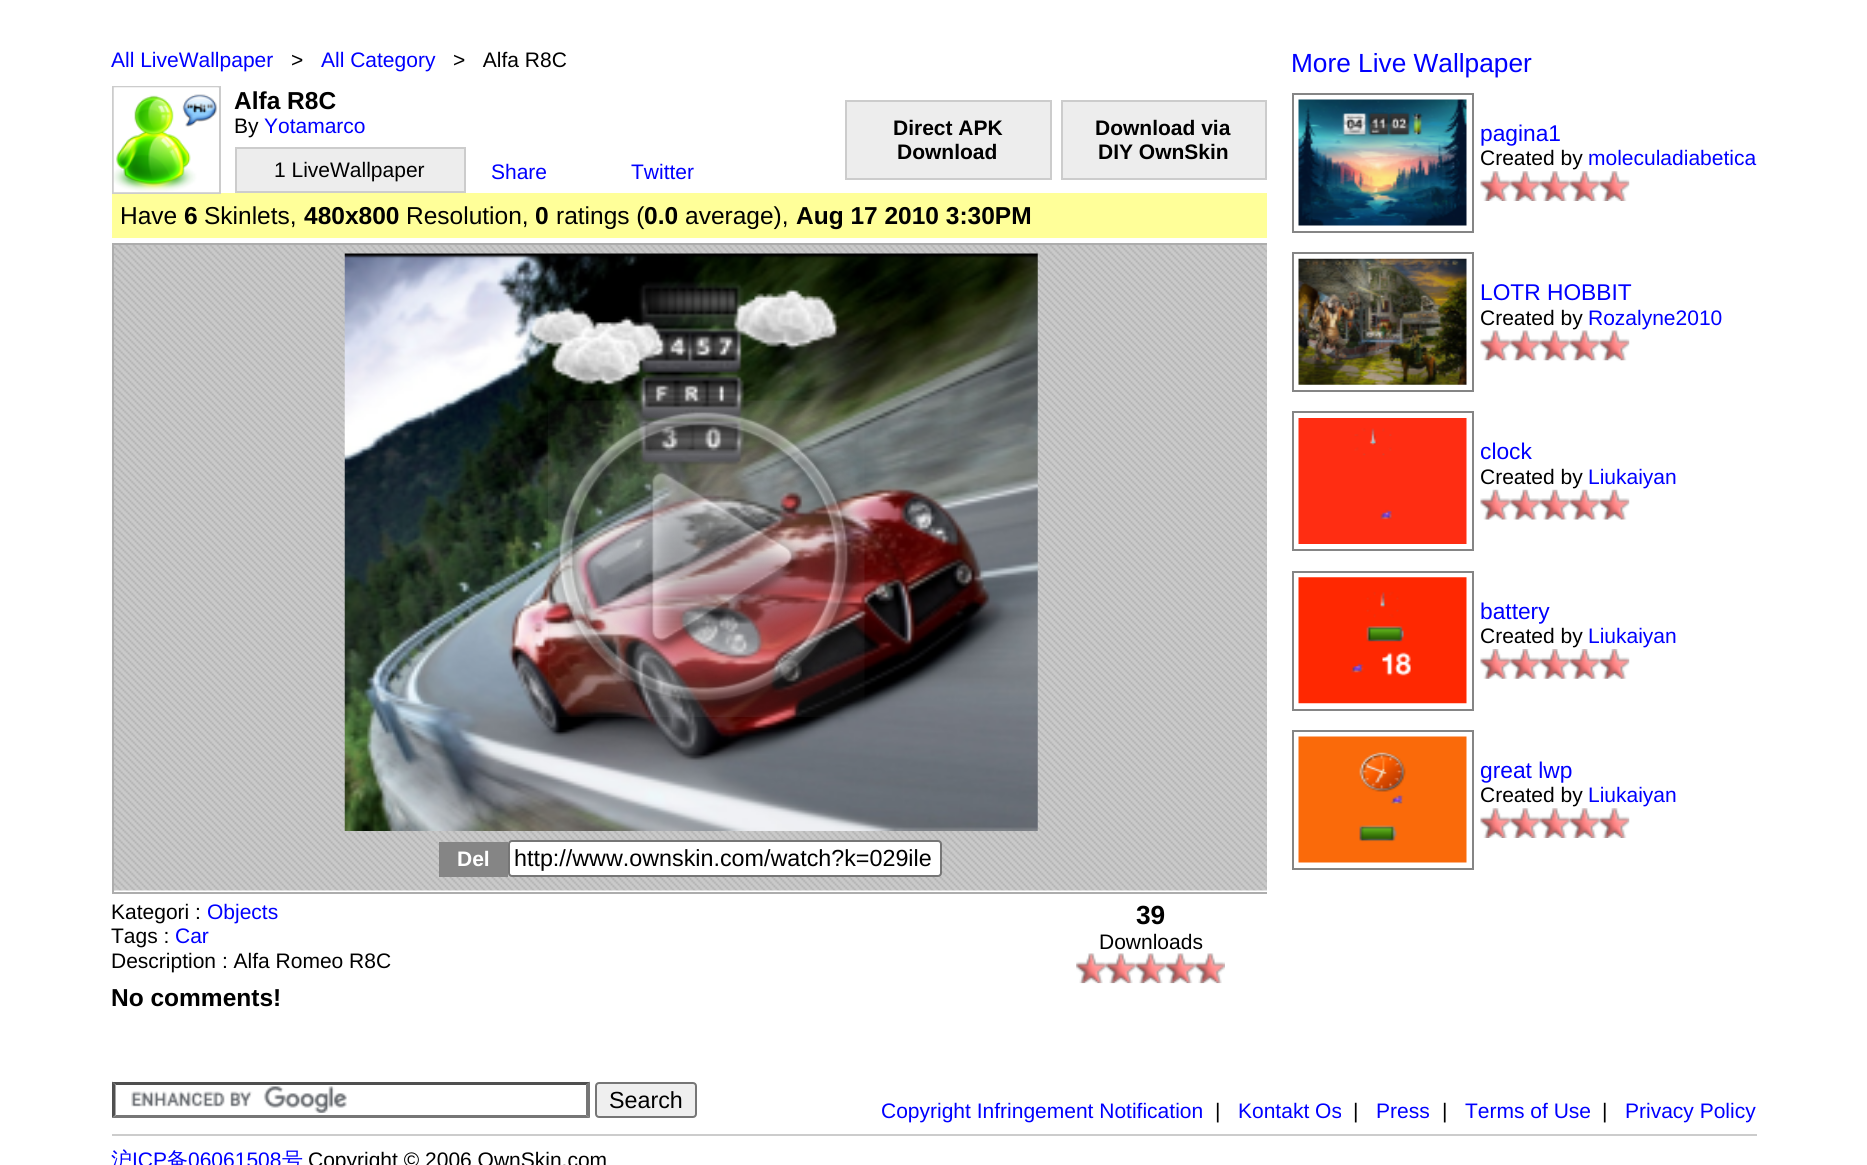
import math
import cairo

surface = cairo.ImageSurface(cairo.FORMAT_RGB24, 1867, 1165)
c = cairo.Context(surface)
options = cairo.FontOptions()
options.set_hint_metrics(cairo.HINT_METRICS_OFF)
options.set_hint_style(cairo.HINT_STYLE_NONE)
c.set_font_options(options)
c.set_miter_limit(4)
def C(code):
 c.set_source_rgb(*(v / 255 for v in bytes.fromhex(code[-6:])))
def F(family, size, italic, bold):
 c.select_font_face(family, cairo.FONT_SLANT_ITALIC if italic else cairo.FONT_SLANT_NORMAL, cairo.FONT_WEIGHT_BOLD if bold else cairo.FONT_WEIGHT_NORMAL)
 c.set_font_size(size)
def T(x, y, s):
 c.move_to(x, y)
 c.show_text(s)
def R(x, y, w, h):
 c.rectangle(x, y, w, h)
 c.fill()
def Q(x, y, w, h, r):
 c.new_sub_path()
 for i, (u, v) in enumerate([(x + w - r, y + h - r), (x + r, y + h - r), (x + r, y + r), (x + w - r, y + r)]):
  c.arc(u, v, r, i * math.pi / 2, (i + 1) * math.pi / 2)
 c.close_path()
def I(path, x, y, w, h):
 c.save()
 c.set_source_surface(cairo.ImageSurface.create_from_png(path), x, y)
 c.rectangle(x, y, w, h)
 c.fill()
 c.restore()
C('ffffff')
c.paint()
F('Liberation Sans',21,0,0)
C('0000ff')
T(111,67,'All LiveWallpaper')
C('000000')
T(291,67,'>')
C('0000ff')
T(321,67,'All Category')
C('000000')
T(453,67,'>   Alfa R8C')
C('ffff99')
R(112,193,1155,45)
c.rectangle(113,87,107,106)
C('cccccc')
c.stroke()
I('1.png',113,87,106,106)
F('Liberation Sans',24.5,0,1)
C('000000')
T(234,109,'Alfa R8C')
F('Liberation Sans',21,0,0)
T(234,133,'By')
C('0000ff')
T(264,133,'Yotamarco')
C('ededed')
c.rectangle(236,148,229,44)
c.fill_preserve()
C('cccccc')
c.stroke()
C('000000')
T(274,177,'1 LiveWallpaper')
C('ededed')
c.rectangle(846,101,205,78)
c.fill_preserve()
C('cccccc')
c.stroke()
F('Liberation Sans',21,0,1)
C('000000')
T(893,135,'Direct APK')
T(897,159,'Download')
C('ededed')
c.rectangle(1062,101,204,78)
c.fill_preserve()
C('cccccc')
c.stroke()
C('000000')
T(1095,135,'Download via')
T(1098,159,'DIY OwnSkin')
F('Liberation Sans',21,0,0)
C('0000ff')
T(491,179,'Share')
T(631,179,'Twitter')
F('Liberation Sans',24.5,0,0)
C('000000')
T(120,224,'Have')
F('Liberation Sans',24.5,0,1)
T(184,224,'6')
F('Liberation Sans',24.5,0,0)
T(204,224,'Skinlets,')
F('Liberation Sans',24.5,0,1)
T(304,224,'480x800')
F('Liberation Sans',24.5,0,0)
T(406,224,'Resolution,')
F('Liberation Sans',24.5,0,1)
T(535,224,'0')
F('Liberation Sans',24.5,0,0)
T(556,224,'ratings (')
F('Liberation Sans',24.5,0,1)
T(644,224,'0.0')
F('Liberation Sans',24.5,0,0)
T(685,224,'average),')
F('Liberation Sans',24.5,0,1)
T(796,224,'Aug 17 2010 3:30PM')
I('2.png',114,245,1153,646)
c.save()
c.rectangle(112,86,1155,898)
c.clip()
c.rectangle(113,244,1157,649)
C('adadad')
c.stroke()
c.restore()
I('3.png',344,253,694,578)
I('4.png',548,400,317,317)
C('858585')
R(439,842,69,35)
F('Liberation Sans',21,0,1)
C('ffffff')
T(457,866,'Del')
Q(509,841,432,35,3)
c.fill_preserve()
C('767676')
c.stroke()
F('Liberation Sans',23.3,0,0)
C('000000')
T(514,866,'http://www.ownskin.com/watch?k=029ile')
F('Liberation Sans',21,0,0)
T(111,919,'Kategori :')
C('0000ff')
T(207,919,'Objects')
C('000000')
T(111,943,'Tags :')
C('0000ff')
T(175,943,'Car')
C('000000')
T(111,968,'Description : Alfa Romeo R8C')
F('Liberation Sans',26.25,0,1)
T(1136,924,'39')
F('Liberation Sans',21,0,0)
T(1099,949,'Downloads')
I('5.png',1076,953,30,31)
I('6.png',1106,953,30,31)
I('7.png',1135,953,31,31)
I('8.png',1165,953,31,31)
I('9.png',1195,953,30,31)
F('Liberation Sans',26.25,0,0)
C('0000ff')
T(1291,72,'More Live Wallpaper')
c.rectangle(1293,94,180,138)
C('858585')
c.stroke()
I('10.png',1298,99,169,127)
F('Liberation Sans',22.75,0,0)
C('0000ff')
T(1480,141,'pagina1')
F('Liberation Sans',21,0,0)
C('000000')
T(1480,165,'Created by')
C('0000ff')
T(1588,165,'moleculadiabetica')
I('11.png',1480,171,31,30)
I('12.png',1510,171,30,30)
I('13.png',1540,171,30,30)
I('14.png',1569,171,31,30)
I('15.png',1599,171,31,30)
c.rectangle(1293,253,180,138)
C('858585')
c.stroke()
I('16.png',1298,258,169,127)
F('Liberation Sans',22.75,0,0)
C('0000ff')
T(1480,300,'LOTR HOBBIT')
F('Liberation Sans',21,0,0)
C('000000')
T(1480,325,'Created by')
C('0000ff')
T(1588,325,'Rozalyne2010')
I('17.png',1480,330,31,31)
I('18.png',1510,330,30,31)
I('19.png',1540,330,30,31)
I('20.png',1569,330,31,31)
I('21.png',1599,330,31,31)
c.rectangle(1293,412,180,138)
C('858585')
c.stroke()
I('22.png',1298,418,169,126)
F('Liberation Sans',22.75,0,0)
C('0000ff')
T(1480,459,'clock')
F('Liberation Sans',21,0,0)
C('000000')
T(1480,484,'Created by')
C('0000ff')
T(1588,484,'Liukaiyan')
I('23.png',1480,489,31,31)
I('24.png',1510,489,30,31)
I('25.png',1540,489,30,31)
I('26.png',1569,489,31,31)
I('27.png',1599,489,31,31)
c.rectangle(1293,572,180,138)
C('858585')
c.stroke()
I('28.png',1298,577,169,127)
F('Liberation Sans',22.75,0,0)
C('0000ff')
T(1480,619,'battery')
F('Liberation Sans',21,0,0)
C('000000')
T(1480,643,'Created by')
C('0000ff')
T(1588,643,'Liukaiyan')
I('29.png',1480,649,31,30)
I('30.png',1510,649,30,30)
I('31.png',1540,649,30,30)
I('32.png',1569,649,31,30)
I('33.png',1599,649,31,30)
c.rectangle(1293,731,180,138)
C('858585')
c.stroke()
I('34.png',1298,736,169,127)
F('Liberation Sans',22.75,0,0)
C('0000ff')
T(1480,778,'great lwp')
F('Liberation Sans',21,0,0)
C('000000')
T(1480,802,'Created by')
C('0000ff')
T(1588,802,'Liukaiyan')
I('11.png',1480,808,31,30)
I('12.png',1510,808,30,30)
I('13.png',1540,808,30,30)
I('14.png',1569,808,31,30)
I('15.png',1599,808,31,30)
F('Liberation Sans',24.5,0,1)
C('000000')
T(111,1006,'No comments!')
I('35.png',131,1086,216,27)
C('4f4f4f')
c.new_path()
c.move_to(112,1082)
c.line_to(590,1082)
c.line_to(586,1085)
c.line_to(116,1085)
c.close_path()
c.fill()
C('767676')
c.new_path()
c.move_to(590,1081.5)
c.line_to(590,1118)
c.line_to(586,1115)
c.line_to(586,1085)
c.close_path()
c.fill()
c.new_path()
c.move_to(590,1118)
c.line_to(112,1118)
c.line_to(116,1115)
c.line_to(586,1115)
c.close_path()
c.fill()
C('4f4f4f')
c.new_path()
c.move_to(112,1118)
c.line_to(112,1081.5)
c.line_to(115.5,1085)
c.line_to(115.5,1115)
c.close_path()
c.fill()
C('efefef')
Q(596,1083,100,34,3)
c.fill_preserve()
C('767676')
c.stroke()
F('Liberation Sans',23.3,0,0)
C('000000')
T(609,1108,'Search')
C('cccccc')
R(112,1134,1645,2)
F('Liberation Sans',21,0,0)
C('0000ff')
T(881,1118,'Copyright Infringement Notification')
C('000000')
T(1215,1118,'|')
C('0000ff')
T(1238,1118,'Kontakt Os')
C('000000')
T(1353,1118,'|')
C('0000ff')
T(1376,1118,'Press')
C('000000')
T(1442,1118,'|')
C('0000ff')
T(1465,1118,'Terms of Use')
C('000000')
T(1602,1118,'|')
C('0000ff')
T(1625,1118,'Privacy Policy')
F('WenQuanYi Zen Hei Medium',21,0,0)
T(111,1167,'沪')
F('Liberation Sans',21,0,0)
T(132,1167,'ICP')
F('WenQuanYi Zen Hei Medium',21,0,0)
T(167,1167,'备')
F('Liberation Sans',21,0,0)
T(188,1167,'06061508')
F('WenQuanYi Zen Hei Medium',21,0,0)
T(282,1167,'号')
F('Liberation Sans',21,0,0)
C('000000')
T(308,1167,'Copyright © 2006 OwnSkin.com')
surface.write_to_png('o.png')
